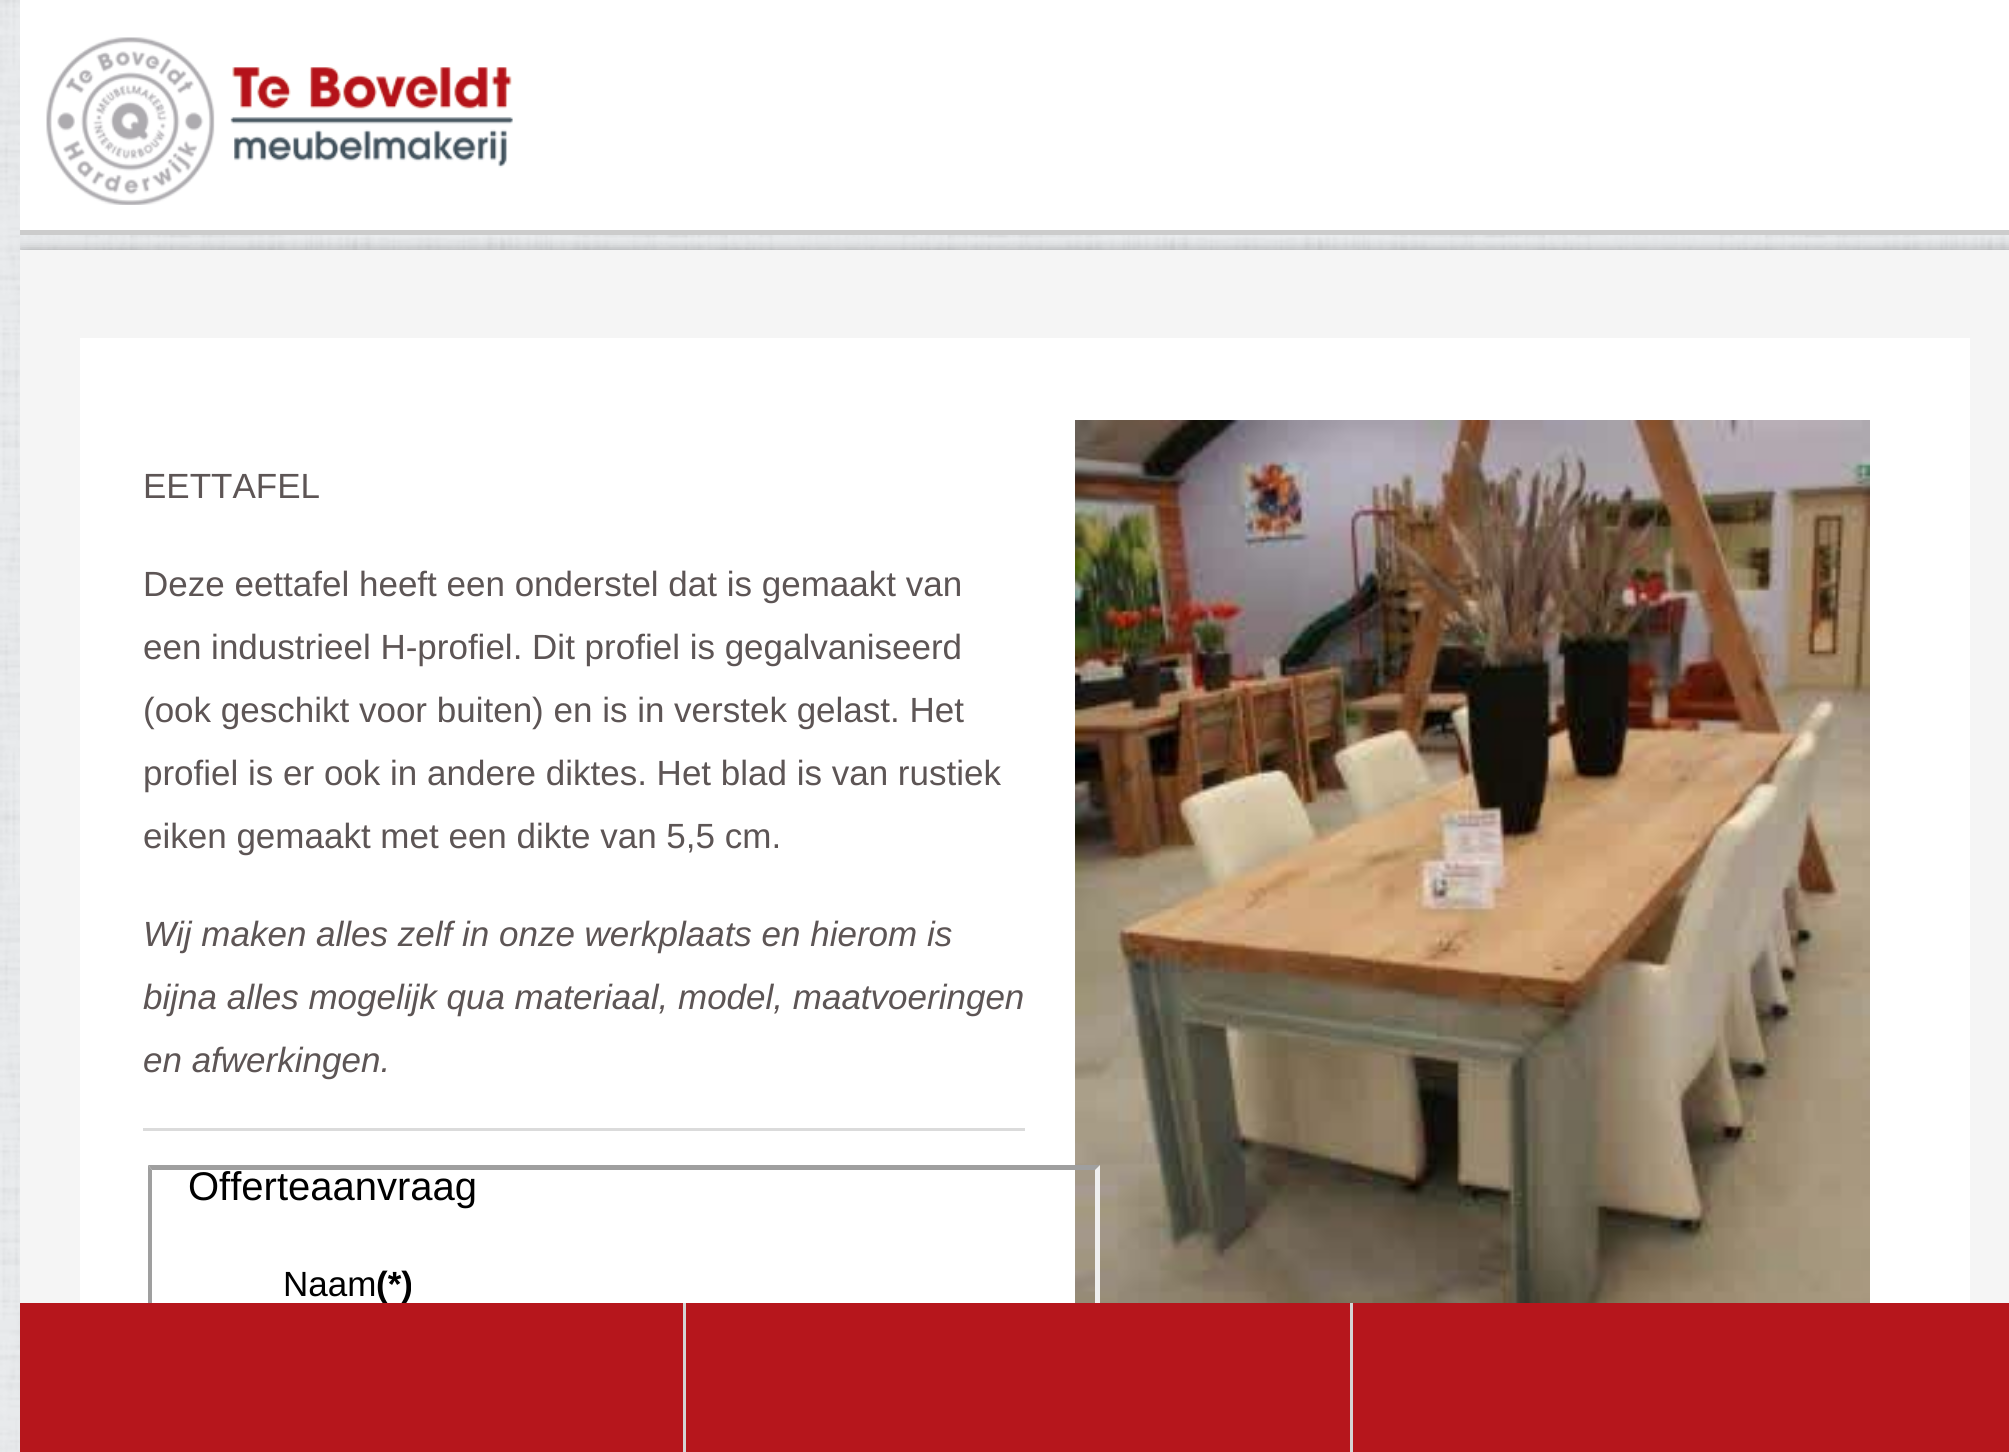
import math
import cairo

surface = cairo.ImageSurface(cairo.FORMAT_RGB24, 2009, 1452)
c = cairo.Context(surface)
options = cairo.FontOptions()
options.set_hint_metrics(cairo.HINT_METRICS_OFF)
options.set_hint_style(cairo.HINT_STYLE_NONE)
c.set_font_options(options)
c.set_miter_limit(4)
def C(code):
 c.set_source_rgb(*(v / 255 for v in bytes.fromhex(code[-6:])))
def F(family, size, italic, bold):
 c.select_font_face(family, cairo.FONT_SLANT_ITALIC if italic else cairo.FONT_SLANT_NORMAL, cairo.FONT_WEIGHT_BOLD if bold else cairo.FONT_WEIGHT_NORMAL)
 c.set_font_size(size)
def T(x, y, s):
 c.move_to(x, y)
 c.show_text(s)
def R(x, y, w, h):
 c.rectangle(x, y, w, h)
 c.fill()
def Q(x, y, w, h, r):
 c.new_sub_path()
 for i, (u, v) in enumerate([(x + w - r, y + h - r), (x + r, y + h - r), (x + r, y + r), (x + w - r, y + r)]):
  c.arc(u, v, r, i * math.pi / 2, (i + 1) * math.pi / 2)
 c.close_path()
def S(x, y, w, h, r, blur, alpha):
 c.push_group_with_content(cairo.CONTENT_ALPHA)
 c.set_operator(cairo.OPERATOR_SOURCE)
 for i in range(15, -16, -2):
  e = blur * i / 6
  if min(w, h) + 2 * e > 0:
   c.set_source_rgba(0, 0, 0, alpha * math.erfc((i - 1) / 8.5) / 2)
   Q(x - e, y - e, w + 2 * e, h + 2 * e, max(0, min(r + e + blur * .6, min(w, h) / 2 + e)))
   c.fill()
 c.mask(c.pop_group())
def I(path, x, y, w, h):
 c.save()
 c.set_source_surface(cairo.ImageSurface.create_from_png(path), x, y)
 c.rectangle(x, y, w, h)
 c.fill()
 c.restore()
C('e6e8eb')
c.paint()
I('1.png',0,0,20,1452)
I('2.png',20,235,1989,15)
C('ffffff')
R(20,0,1989,230)
c.save()
c.rectangle(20,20,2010,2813)
c.clip()
C('000000')
S(20,250,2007,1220,0,6,.3)
c.restore()
C('cccccc')
R(20,230,1989,5)
I('3.png',46,37,467,168)
C('f5f5f5')
R(20,250,1989,1053)
C('ffffff')
R(80,338,1890,965)
F('Liberation Sans',35,0,0)
C('5d5555')
T(143,498,'EETTAFEL')
T(143,596,'Deze eettafel heeft een onderstel dat is gemaakt van')
T(143,659,'een industrieel H-profiel. Dit profiel is gegalvaniseerd')
T(143,722,'(ook geschikt voor buiten) en is in verstek gelast. Het')
T(143,785,'profiel is er ook in andere diktes. Het blad is van rustiek')
T(143,848,'eiken gemaakt met een dikte van 5,5 cm.')
F('Liberation Sans',35,1,0)
T(143,946,'Wij maken alles zelf in onze werkplaats en hierom is')
T(143,1009,'bijna alles mogelijk qua materiaal, model, maatvoeringen')
T(143,1072,'en afwerkingen.')
C('dbdbdb')
R(143,1128,882,3)
I('4.png',1075,420,795,883)
C('9f9f9f')
c.new_path()
c.move_to(148,1165)
c.line_to(1100,1165)
c.line_to(1095,1170)
c.line_to(152,1170)
c.close_path()
c.fill()
C('efefef')
c.new_path()
c.move_to(1100,1165)
c.line_to(1100,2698)
c.line_to(1095,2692)
c.line_to(1095,1170)
c.close_path()
c.fill()
C('9f9f9f')
c.new_path()
c.move_to(148,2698)
c.line_to(148,1165)
c.line_to(152,1170)
c.line_to(152,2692)
c.close_path()
c.fill()
F('Liberation Sans',40,0,0)
C('000000')
T(188,1200,'Offerteaanvraag')
F('Liberation Sans',35,0,0)
T(283,1296,'Naam')
F('Liberation Sans',35,0,1)
T(376,1296,'(*)')
C('b6161c')
R(20,1303,1989,149)
C('d4d4d4')
R(1350,1303,3,149)
R(683,1303,3,149)
surface.write_to_png('o.png')
